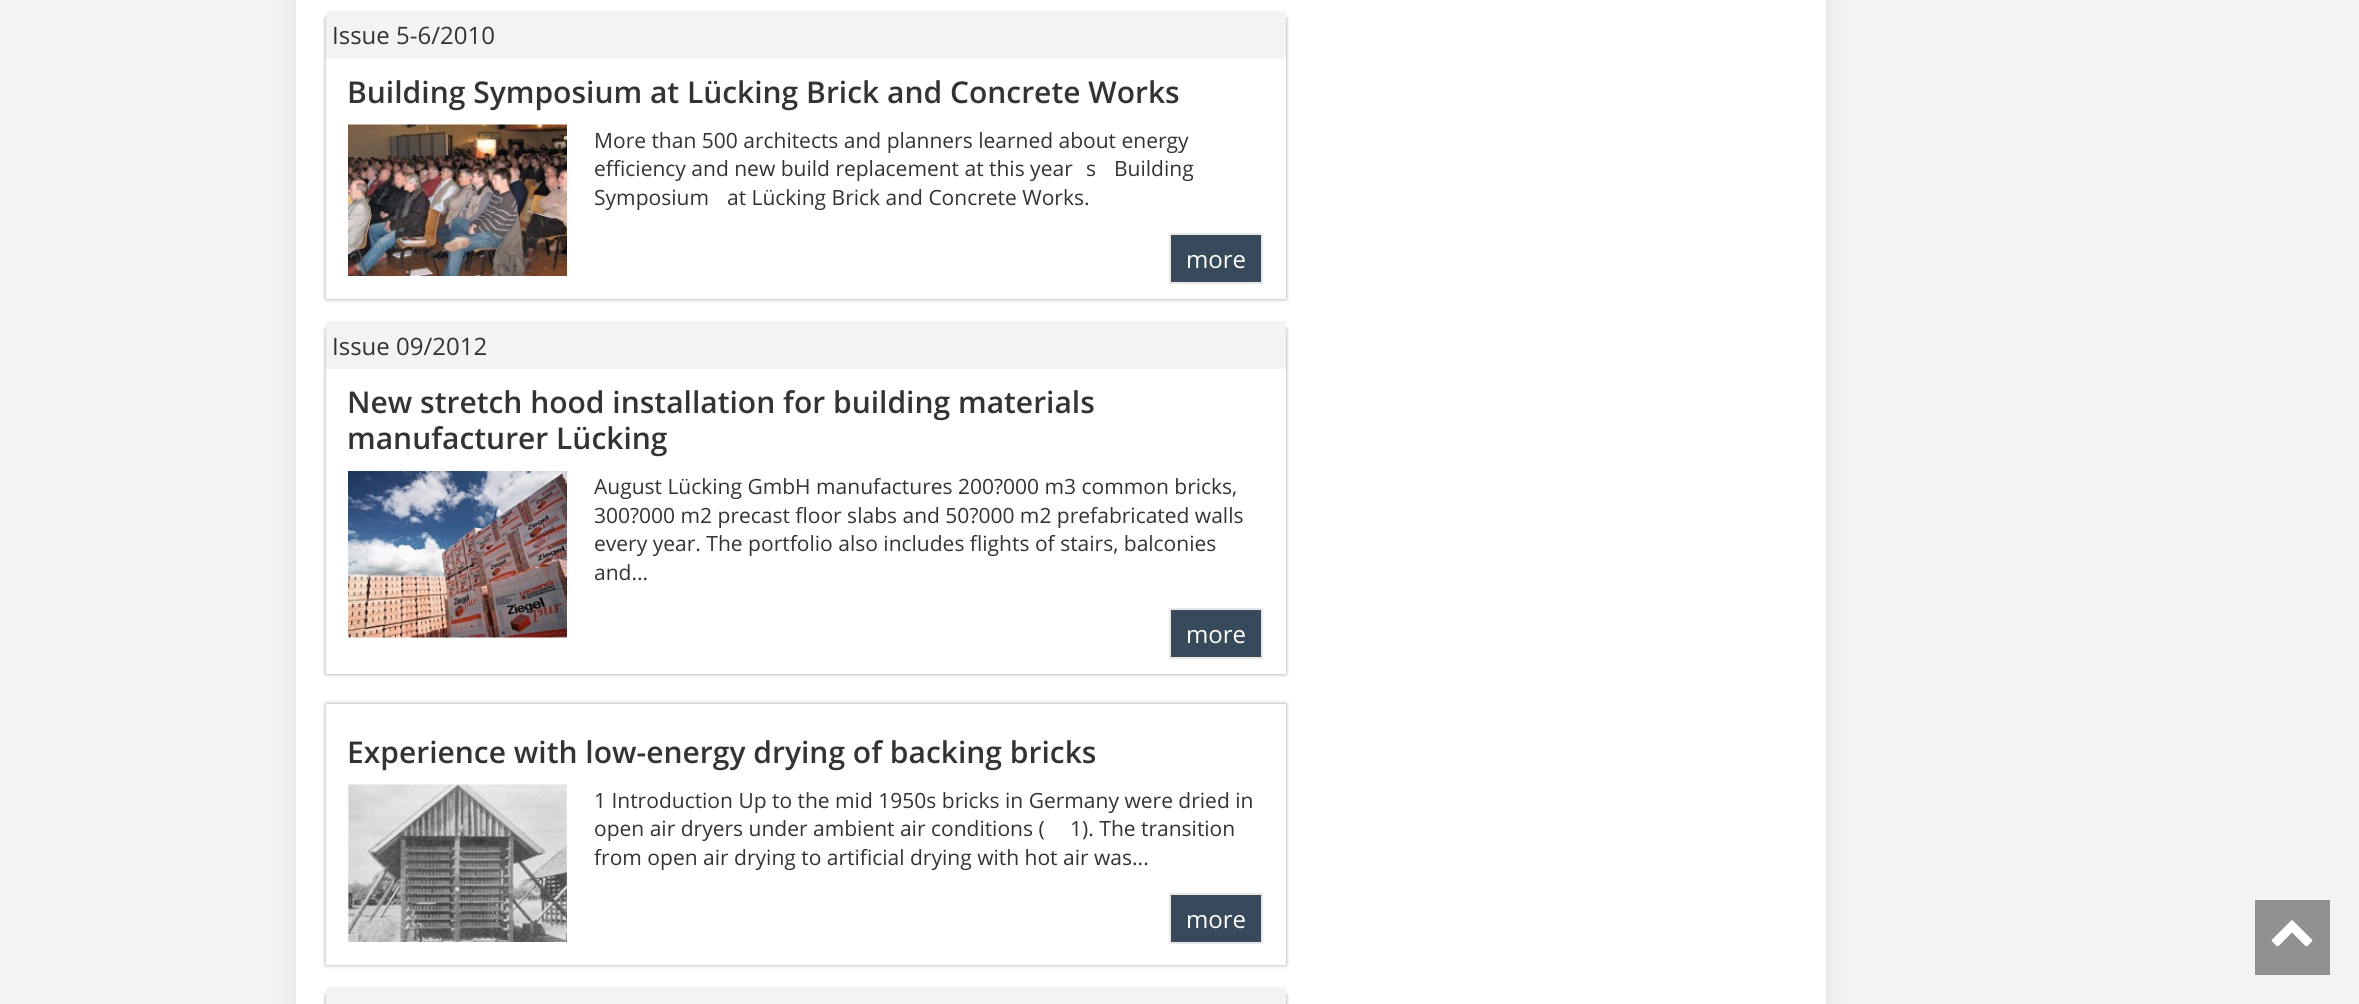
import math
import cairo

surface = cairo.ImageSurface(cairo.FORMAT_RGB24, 2359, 1004)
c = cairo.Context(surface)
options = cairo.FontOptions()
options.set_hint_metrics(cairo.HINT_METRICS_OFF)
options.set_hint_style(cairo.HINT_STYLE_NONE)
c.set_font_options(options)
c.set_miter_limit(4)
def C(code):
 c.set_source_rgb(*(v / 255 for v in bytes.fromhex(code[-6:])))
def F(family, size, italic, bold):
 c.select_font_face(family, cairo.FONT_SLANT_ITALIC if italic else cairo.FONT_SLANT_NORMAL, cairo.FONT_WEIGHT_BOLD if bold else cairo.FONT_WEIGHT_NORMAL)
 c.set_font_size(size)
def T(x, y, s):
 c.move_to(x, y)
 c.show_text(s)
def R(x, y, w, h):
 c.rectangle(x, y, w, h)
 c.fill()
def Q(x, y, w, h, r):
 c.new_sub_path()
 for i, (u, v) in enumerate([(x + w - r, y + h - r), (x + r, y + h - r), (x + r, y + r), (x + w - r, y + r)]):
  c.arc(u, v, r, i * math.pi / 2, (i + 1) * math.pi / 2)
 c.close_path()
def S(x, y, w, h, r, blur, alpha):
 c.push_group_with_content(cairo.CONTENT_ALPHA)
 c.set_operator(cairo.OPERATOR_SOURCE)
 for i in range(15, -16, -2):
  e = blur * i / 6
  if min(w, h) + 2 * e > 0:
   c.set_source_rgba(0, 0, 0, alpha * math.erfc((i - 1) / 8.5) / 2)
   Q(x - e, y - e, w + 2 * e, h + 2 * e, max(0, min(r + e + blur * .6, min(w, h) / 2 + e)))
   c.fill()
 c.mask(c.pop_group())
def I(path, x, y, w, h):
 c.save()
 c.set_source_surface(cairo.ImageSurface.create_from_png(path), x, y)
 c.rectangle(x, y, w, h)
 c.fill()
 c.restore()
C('f3f3f3')
c.paint()
C('677a8d')
S(296,-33,1530,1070,0,11,.17)
C('ffffff')
R(296,0,1530,1004)
c.save()
c.set_fill_rule(cairo.FILL_RULE_EVEN_ODD)
c.new_path()
c.move_to(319,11)
c.line_to(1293,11)
c.line_to(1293,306)
c.line_to(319,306)
c.close_path()
c.move_to(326,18)
c.line_to(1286,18)
c.line_to(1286,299)
c.line_to(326,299)
c.close_path()
c.clip()
C('999999')
S(326,18,960,281,0,2,1)
c.restore()
C('f3f3f3')
R(326,11,960,48)
F('Open Sans',24,0,0)
C('333333')
T(332,44,'Issue 5-6/2010')
F('Open Sans SemiBold',30,0,0)
T(347,103,'Building Symposium at Lücking Brick and Concrete Works')
I('1.png',348,124,219,152)
F('Open Sans',21,0,0)
T(594,148,'More than 500 architects and planners learned about energy')
T(594,176,'efficiency and new build replacement at this year')
T(1086,176,'s')
T(1114,176,'Building')
T(594,205,'Symposium')
T(727,205,'at Lücking Brick and Concrete Works.')
C('39495c')
c.rectangle(1170,234,92,49)
c.fill_preserve()
C('e8e8e8')
c.stroke()
F('Open Sans',24,0,0)
C('ffffff')
T(1186,268,'more')
c.save()
c.set_fill_rule(cairo.FILL_RULE_EVEN_ODD)
c.new_path()
c.move_to(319,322)
c.line_to(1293,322)
c.line_to(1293,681)
c.line_to(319,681)
c.close_path()
c.move_to(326,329)
c.line_to(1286,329)
c.line_to(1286,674)
c.line_to(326,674)
c.close_path()
c.clip()
C('999999')
S(326,329,960,345,0,2,1)
c.restore()
C('f3f3f3')
R(326,321,960,48)
C('333333')
T(332,355,'Issue 09/2012')
F('Open Sans SemiBold',30,0,0)
T(347,413,'New stretch hood installation for building materials')
T(347,449,'manufacturer Lücking')
I('2.png',348,471,219,167)
F('Open Sans',21,0,0)
T(594,494,'August Lücking GmbH manufactures 200?000 m3 common bricks,')
T(594,523,'300?000 m2 precast floor slabs and 50?000 m2 prefabricated walls')
T(594,551,'every year. The portfolio also includes flights of stairs, balconies')
T(594,580,'and...')
C('39495c')
c.rectangle(1170,609,92,49)
c.fill_preserve()
C('e8e8e8')
c.stroke()
F('Open Sans',24,0,0)
C('ffffff')
T(1186,643,'more')
c.save()
c.set_fill_rule(cairo.FILL_RULE_EVEN_ODD)
c.new_path()
c.move_to(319,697)
c.line_to(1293,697)
c.line_to(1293,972)
c.line_to(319,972)
c.close_path()
c.move_to(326,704)
c.line_to(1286,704)
c.line_to(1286,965)
c.line_to(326,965)
c.close_path()
c.clip()
C('999999')
S(326,704,960,261,0,2,1)
c.restore()
F('Open Sans SemiBold',30,0,0)
C('333333')
T(347,763,'Experience with low-energy drying of backing bricks')
I('3.png',348,784,219,158)
F('Open Sans',21,0,0)
T(594,808,'1 Introduction Up to the mid 1950s bricks in Germany were dried in')
T(594,836,'open air dryers under ambient air conditions (')
T(1070,836,'1). The transition')
T(594,865,'from open air drying to artificial drying with hot air was...')
C('39495c')
c.rectangle(1170,894,92,49)
c.fill_preserve()
C('e8e8e8')
c.stroke()
F('Open Sans',24,0,0)
C('ffffff')
T(1186,928,'more')
C('999999')
S(326,995,960,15,0,2,1)
C('f3f3f3')
R(326,987,960,17)
C('909090')
R(2255,900,75,75)
I('4.png',2271,920,42,27)
surface.write_to_png('o.png')
